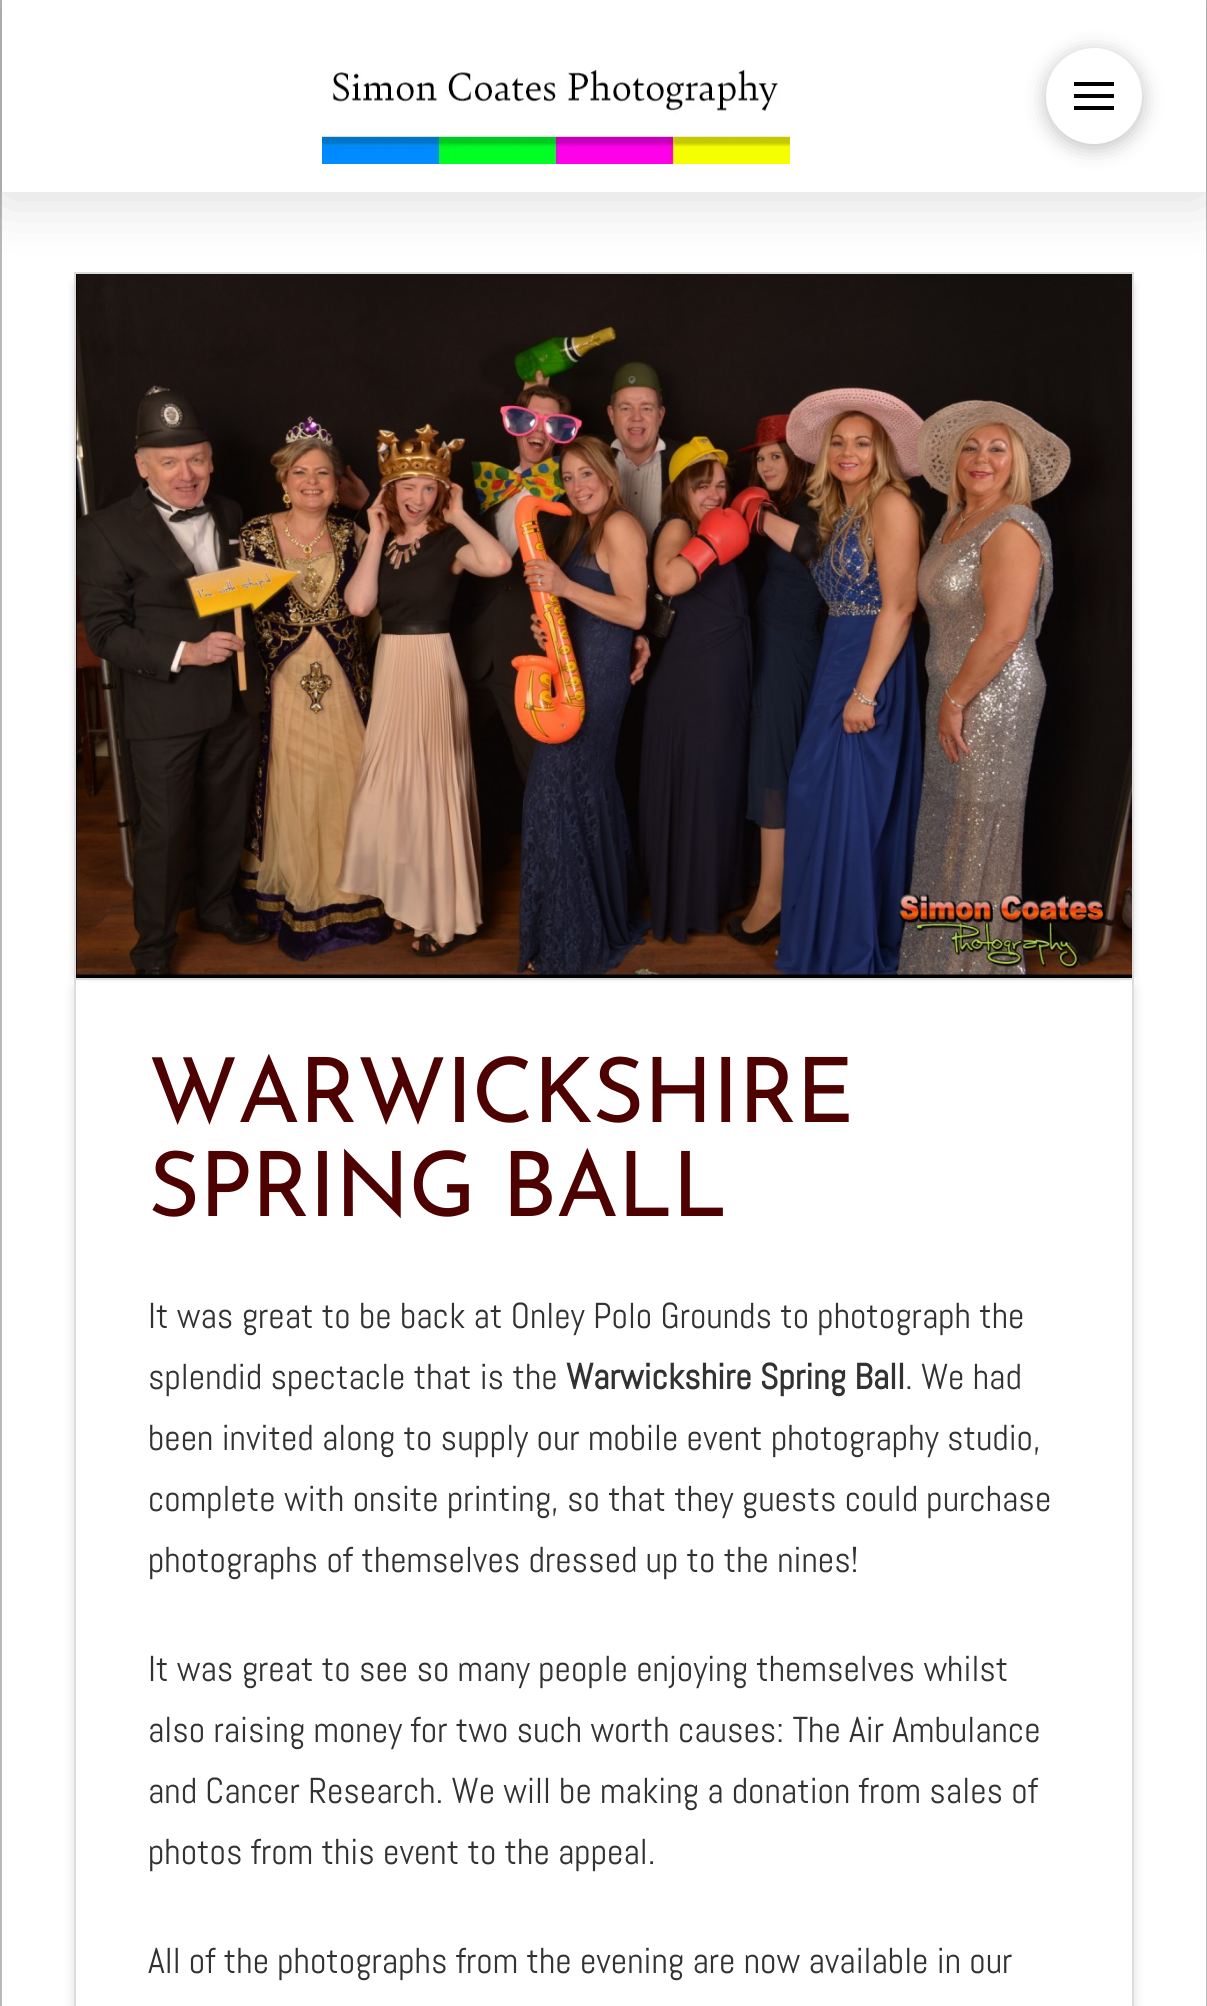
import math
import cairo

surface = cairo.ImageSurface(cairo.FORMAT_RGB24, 1207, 2006)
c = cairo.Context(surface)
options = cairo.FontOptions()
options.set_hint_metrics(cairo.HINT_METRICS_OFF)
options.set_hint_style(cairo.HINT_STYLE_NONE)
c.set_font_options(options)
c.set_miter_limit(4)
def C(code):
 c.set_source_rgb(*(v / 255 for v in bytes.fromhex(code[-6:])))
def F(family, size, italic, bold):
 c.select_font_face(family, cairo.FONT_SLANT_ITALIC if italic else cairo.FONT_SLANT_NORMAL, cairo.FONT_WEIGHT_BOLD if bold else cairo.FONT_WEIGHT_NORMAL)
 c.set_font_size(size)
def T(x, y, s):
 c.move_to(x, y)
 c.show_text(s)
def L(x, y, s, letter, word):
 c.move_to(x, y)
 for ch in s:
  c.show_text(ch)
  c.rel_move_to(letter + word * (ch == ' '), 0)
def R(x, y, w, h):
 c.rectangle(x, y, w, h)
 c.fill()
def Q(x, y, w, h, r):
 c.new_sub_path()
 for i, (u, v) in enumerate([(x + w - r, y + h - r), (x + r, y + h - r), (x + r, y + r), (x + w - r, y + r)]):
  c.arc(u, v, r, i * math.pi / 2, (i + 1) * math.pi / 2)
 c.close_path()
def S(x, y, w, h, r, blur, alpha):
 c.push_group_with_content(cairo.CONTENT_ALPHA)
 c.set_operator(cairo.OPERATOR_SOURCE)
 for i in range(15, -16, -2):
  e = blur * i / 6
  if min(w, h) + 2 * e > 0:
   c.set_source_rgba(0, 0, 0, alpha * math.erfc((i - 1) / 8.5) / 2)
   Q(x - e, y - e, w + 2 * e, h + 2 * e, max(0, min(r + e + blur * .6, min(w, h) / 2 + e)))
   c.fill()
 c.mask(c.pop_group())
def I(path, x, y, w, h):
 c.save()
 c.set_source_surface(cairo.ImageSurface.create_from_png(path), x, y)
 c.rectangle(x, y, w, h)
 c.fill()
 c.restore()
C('ffffff')
c.paint()
C('b9b9b9')
R(1206,0,1,2006)
R(0,0,2,2006)
c.save()
c.set_fill_rule(cairo.FILL_RULE_EVEN_ODD)
c.new_path()
c.move_to(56,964)
c.line_to(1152,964)
c.line_to(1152,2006)
c.line_to(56,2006)
c.close_path()
c.move_to(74,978)
c.line_to(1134,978)
c.line_to(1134,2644)
c.curve_to(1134,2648.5,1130.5,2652,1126,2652)
c.line_to(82,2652)
c.curve_to(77.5,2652,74,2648.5,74,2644)
c.close_path()
c.clip()
C('000000')
S(74,982,1060,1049,8,5.5,.13)
c.restore()
c.rectangle(75,979,1058,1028)
C('dddddd')
c.stroke()
C('000000')
S(74,284,1044,692,0,4,.13)
S(90,284,1044,692,0,4,.13)
c.rectangle(75,273,1058,706)
C('dddddd')
c.stroke()
I('2.png',76,274,1056,704)
c.save()
c.set_fill_rule(cairo.FILL_RULE_EVEN_ODD)
c.new_path()
c.move_to(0,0)
c.line_to(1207,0)
c.line_to(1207,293)
c.line_to(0,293)
c.close_path()
c.move_to(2,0)
c.line_to(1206,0)
c.line_to(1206,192)
c.line_to(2,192)
c.close_path()
c.clip()
C('000000')
S(2,4,1204,192,0,32,.15)
c.restore()
I('1.png',322,69,468,95)
C('000000')
S(1046,52,96,96,48,10.5,.25)
C('ffffff')
c.arc(1094,96,48,0,2 * math.pi)
c.fill()
C('000000')
R(1074,82,40,4)
R(1074,94,40,4)
R(1074,106,40,4)
F('Josefin Sans Thin',90,0,0)
C('4e0101')
L(148,1122,'WARWICKSHIRE',-1.5,0)
L(148,1216,'SPRING BALL',-1.5,0)
F('Abel',36,0,0)
C('333131')
T(148,1328,'It was great to be back at Onley Polo Grounds to photograph the')
T(148,1389,'splendid spectacle that is the')
F('Abel',36,0,1)
T(566,1389,'Warwickshire Spring Ball')
F('Abel',36,0,0)
T(905,1389,'. We had')
T(148,1450,'been invited along to supply our mobile event photography studio,')
T(148,1511,'complete with onsite printing, so that they guests could purchase')
T(148,1572,'photographs of themselves dressed up to the nines!')
T(148,1681,'It was great to see so many people enjoying themselves whilst')
T(148,1742,'also raising money for two such worth causes: The Air Ambulance')
T(148,1803,'and Cancer Research. We will be making a donation from sales of')
T(148,1864,'photos from this event to the appeal.')
T(148,1973,'All of the photographs from the evening are now available in our')
surface.write_to_png('o.png')
